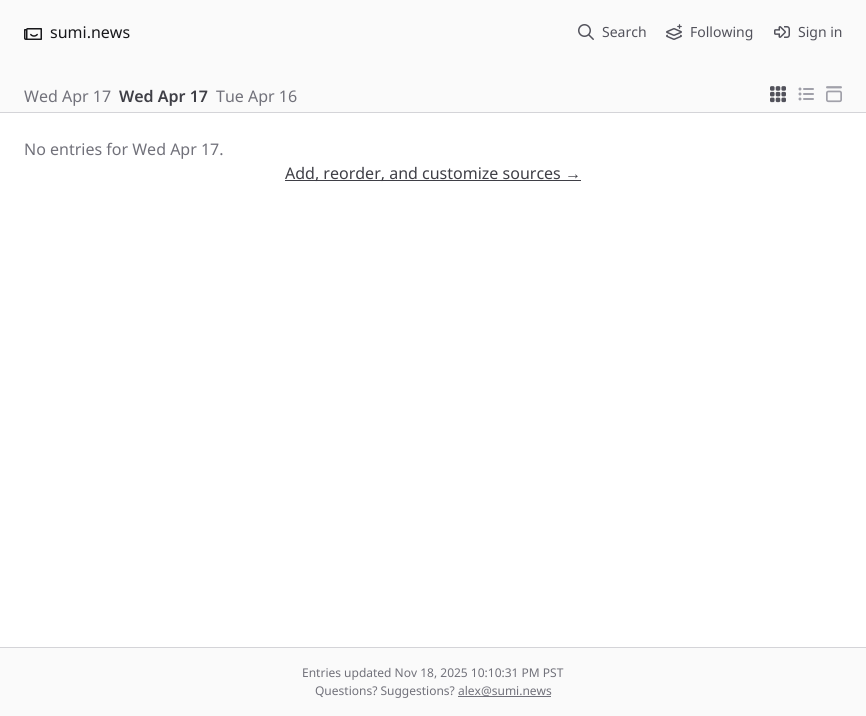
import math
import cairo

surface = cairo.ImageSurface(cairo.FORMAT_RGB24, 866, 716)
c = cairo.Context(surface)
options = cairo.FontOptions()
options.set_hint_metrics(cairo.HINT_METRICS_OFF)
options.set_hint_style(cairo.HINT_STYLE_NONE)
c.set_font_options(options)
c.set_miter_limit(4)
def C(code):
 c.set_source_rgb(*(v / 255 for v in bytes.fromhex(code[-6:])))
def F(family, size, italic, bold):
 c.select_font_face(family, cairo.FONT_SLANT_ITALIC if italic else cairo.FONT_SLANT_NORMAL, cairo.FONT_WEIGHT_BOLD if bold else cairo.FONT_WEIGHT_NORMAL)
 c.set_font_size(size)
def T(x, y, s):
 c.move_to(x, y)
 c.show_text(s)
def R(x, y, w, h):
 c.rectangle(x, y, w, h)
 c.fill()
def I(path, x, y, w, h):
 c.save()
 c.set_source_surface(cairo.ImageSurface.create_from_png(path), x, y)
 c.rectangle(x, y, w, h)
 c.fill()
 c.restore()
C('fafafa')
c.paint()
I('1.png',24,28,18,12)
F('Noto Sans',16,0,0)
C('18181b')
T(50,38,'sumi.news')
I('2.png',578,24,16,16)
F('Noto Sans',14,0,0)
C('52525b')
T(602,37,'Search')
I('3.png',666,24,16,16)
T(690,37,'Following')
I('4.png',774,26,16,12)
T(798,37,'Sign in')
F('Noto Sans',16,0,0)
C('71717a')
T(24,102,'Wed Apr 17')
F('Noto Sans SemiBold',16,0,0)
C('3f3f46')
T(119,102,'Wed Apr 17')
F('Noto Sans',16,0,0)
C('71717a')
T(216,102,'Tue Apr 16')
I('5.png',770,86,16,17)
I('6.png',798,87,16,14)
I('7.png',826,86,16,17)
C('ffffff')
R(0,113,866,534)
C('d4d4d8')
R(0,112,866,1)
R(0,647,866,1)
C('71717a')
T(24,155,'No entries for Wed Apr 17.')
C('3f3f46')
R(285,180,296,1)
T(285,179,'Add, reorder, and customize sources')
F('Liberation Sans',16,0,0)
T(565,179,'→')
F('Noto Sans',12,0,0)
C('71717a')
T(302,677,'Entries updated Nov 18, 2025 10:10:31 PM PST')
T(315,695,'Questions? Suggestions?')
R(458,696,93,1)
T(458,695,'alex@sumi.news')
surface.write_to_png('o.png')
